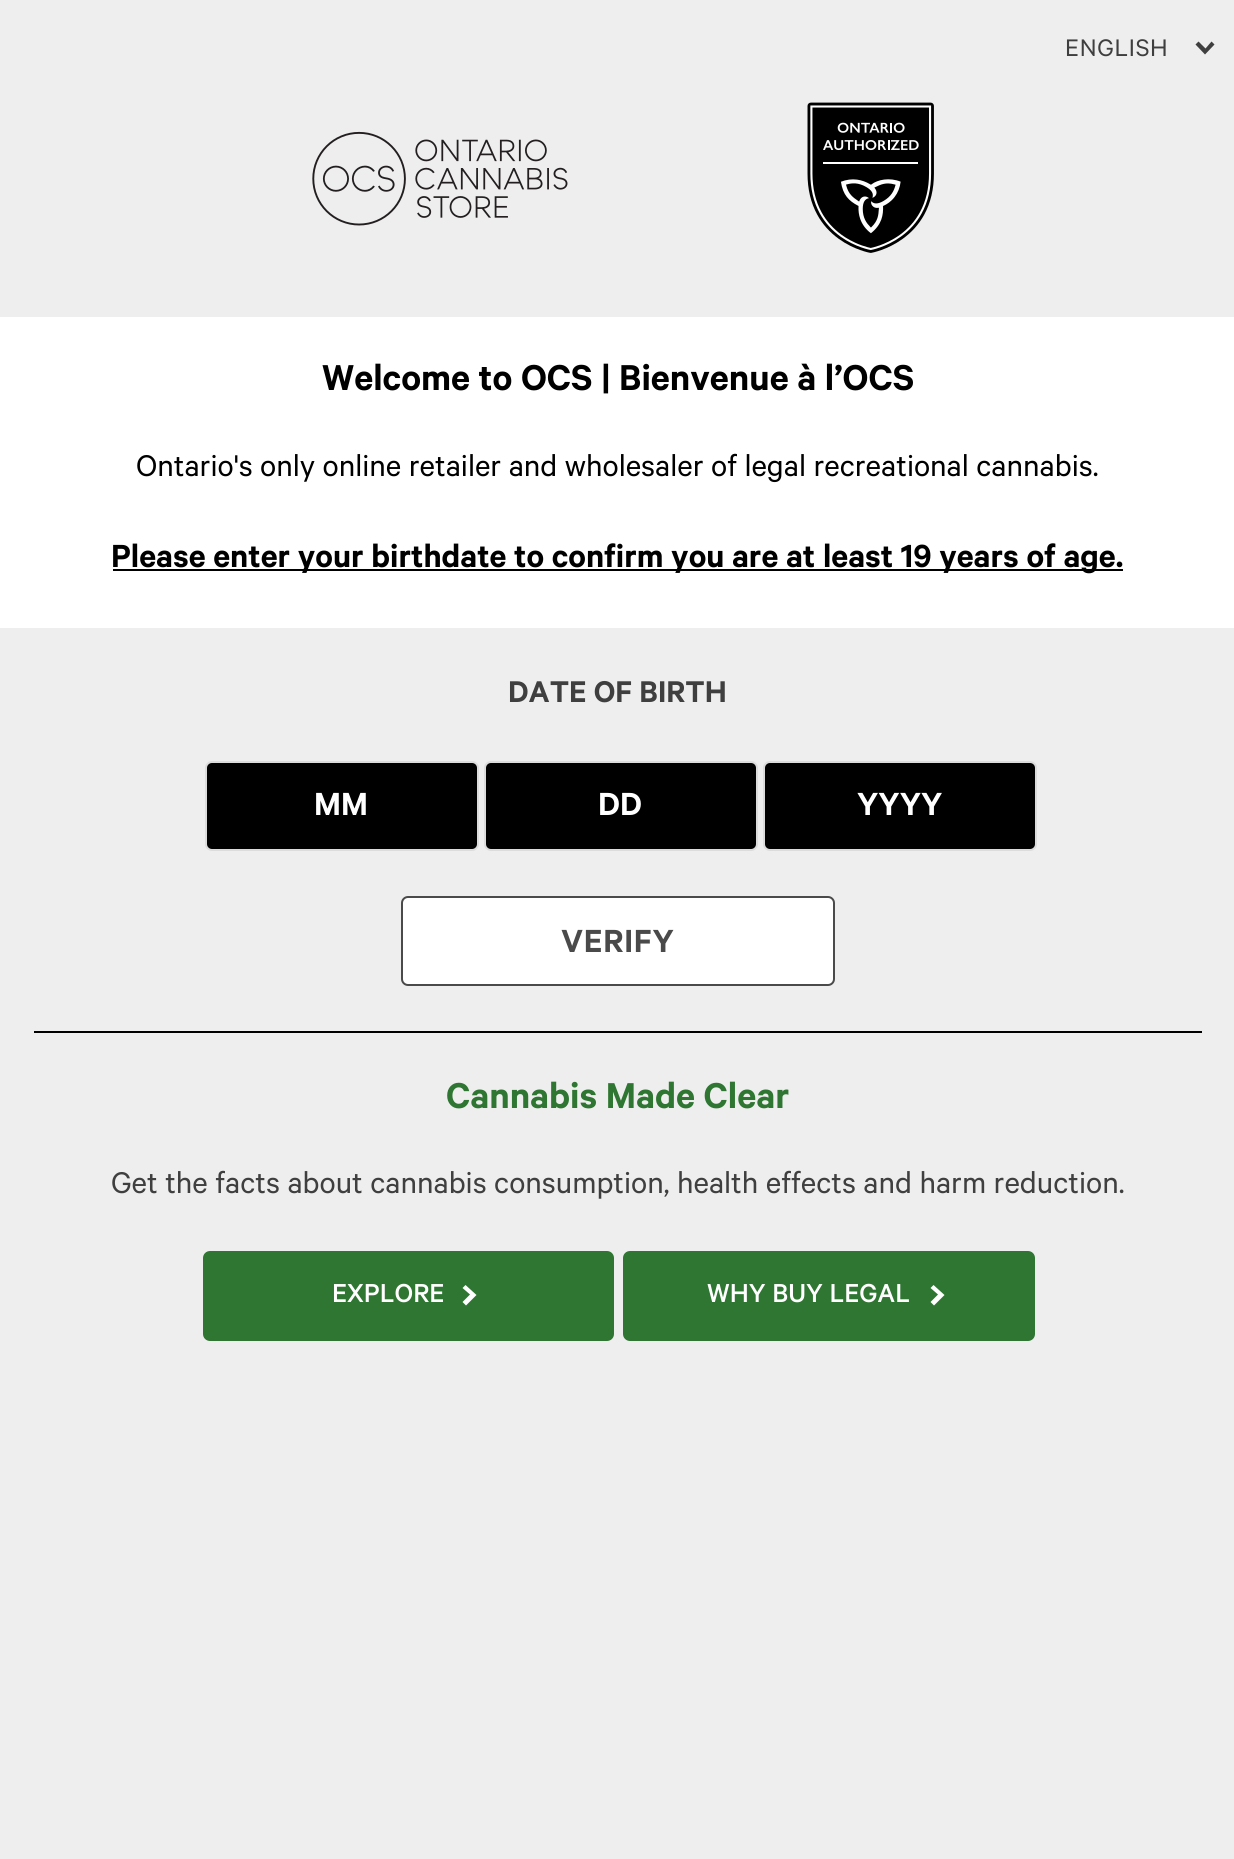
import math
import cairo

surface = cairo.ImageSurface(cairo.FORMAT_RGB24, 1234, 1859)
c = cairo.Context(surface)
options = cairo.FontOptions()
options.set_hint_metrics(cairo.HINT_METRICS_OFF)
options.set_hint_style(cairo.HINT_STYLE_NONE)
c.set_font_options(options)
c.set_miter_limit(4)
def C(code):
 c.set_source_rgb(*(v / 255 for v in bytes.fromhex(code[-6:])))
def F(family, size, italic, bold):
 c.select_font_face(family, cairo.FONT_SLANT_ITALIC if italic else cairo.FONT_SLANT_NORMAL, cairo.FONT_WEIGHT_BOLD if bold else cairo.FONT_WEIGHT_NORMAL)
 c.set_font_size(size)
def T(x, y, s):
 c.move_to(x, y)
 c.show_text(s)
def L(x, y, s, letter, word):
 c.move_to(x, y)
 for ch in s:
  c.show_text(ch)
  c.rel_move_to(letter + word * (ch == ' '), 0)
def R(x, y, w, h):
 c.rectangle(x, y, w, h)
 c.fill()
def Q(x, y, w, h, r):
 c.new_sub_path()
 for i, (u, v) in enumerate([(x + w - r, y + h - r), (x + r, y + h - r), (x + r, y + r), (x + w - r, y + r)]):
  c.arc(u, v, r, i * math.pi / 2, (i + 1) * math.pi / 2)
 c.close_path()
def I(path, x, y, w, h):
 c.save()
 c.set_source_surface(cairo.ImageSurface.create_from_png(path), x, y)
 c.rectangle(x, y, w, h)
 c.fill()
 c.restore()
C('eeeeee')
c.paint()
F('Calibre',27,0,0)
C('3f3f3f')
L(1065,56,'ENGLISH',.75,0)
c.new_path()
c.move_to(1205.5,48.5)
c.line_to(1211.5,41.5)
c.line_to(1214.5,44.5)
c.line_to(1205,54.5)
c.line_to(1195.5,44.5)
c.line_to(1198.5,41.5)
c.close_path()
c.fill()
I('1.png',312,131,256,95)
I('2.png',807,102,127,151)
C('ffffff')
R(0,317,1234,311)
F('Calibre SemiBold',40.5,0,0)
C('000000')
T(322,390,'Welcome to OCS | Bienvenue à l’OCS')
F('Calibre',33.75,0,0)
T(136,476,'Ontario\'s only online retailer and wholesaler of legal recreational cannabis.')
R(113,569,1010,2)
F('Calibre SemiBold',36,0,0)
T(111,567,'Please enter your birthdate to confirm you are at least 19 years of age.')
F('Calibre SemiBold',33.75,0,0)
C('3f3f3f')
T(508,702,'DATE OF BIRTH')
C('000000')
Q(206,762,272,88,6)
c.fill_preserve()
C('dcdcdc')
c.stroke()
F('Calibre SemiBold',36,0,0)
C('ffffff')
T(314,815,'MM')
C('000000')
Q(485,762,272,88,6)
c.fill_preserve()
C('dcdcdc')
c.stroke()
C('ffffff')
T(598,815,'DD')
C('000000')
Q(764,762,272,88,6)
c.fill_preserve()
C('dcdcdc')
c.stroke()
C('ffffff')
T(857,815,'YYYY')
Q(402,897,432,88,6)
c.fill_preserve()
C('4a4a4a')
c.stroke()
L(561,952,'VERIFY',.75,0)
C('000000')
R(34,1031,1168,2)
F('Calibre SemiBold',40.5,0,0)
C('2e7631')
T(446,1108,'Cannabis Made Clear')
F('Calibre',33.75,0,0)
C('3f3f3f')
T(111,1193,'Get the facts about cannabis consumption, health effects and harm reduction.')
C('2e7631')
Q(203,1251,411,90,7)
c.fill()
F('Calibre Medium',29.25,0,0)
C('ffffff')
T(332,1302,'EXPLORE')
c.new_path()
c.move_to(470,1294.5)
c.line_to(462.5,1288)
c.line_to(465.5,1285)
c.line_to(476.5,1295)
c.line_to(466,1305.5)
c.line_to(462.5,1302)
c.close_path()
c.fill()
C('2e7631')
Q(623,1251,412,90,7)
c.fill()
C('ffffff')
T(707,1302,'WHY BUY LEGAL')
c.new_path()
c.move_to(938,1294.5)
c.line_to(930.5,1288)
c.line_to(933.5,1285)
c.line_to(944.5,1295)
c.line_to(934,1305.5)
c.line_to(930.5,1302)
c.close_path()
c.fill()
surface.write_to_png('o.png')
